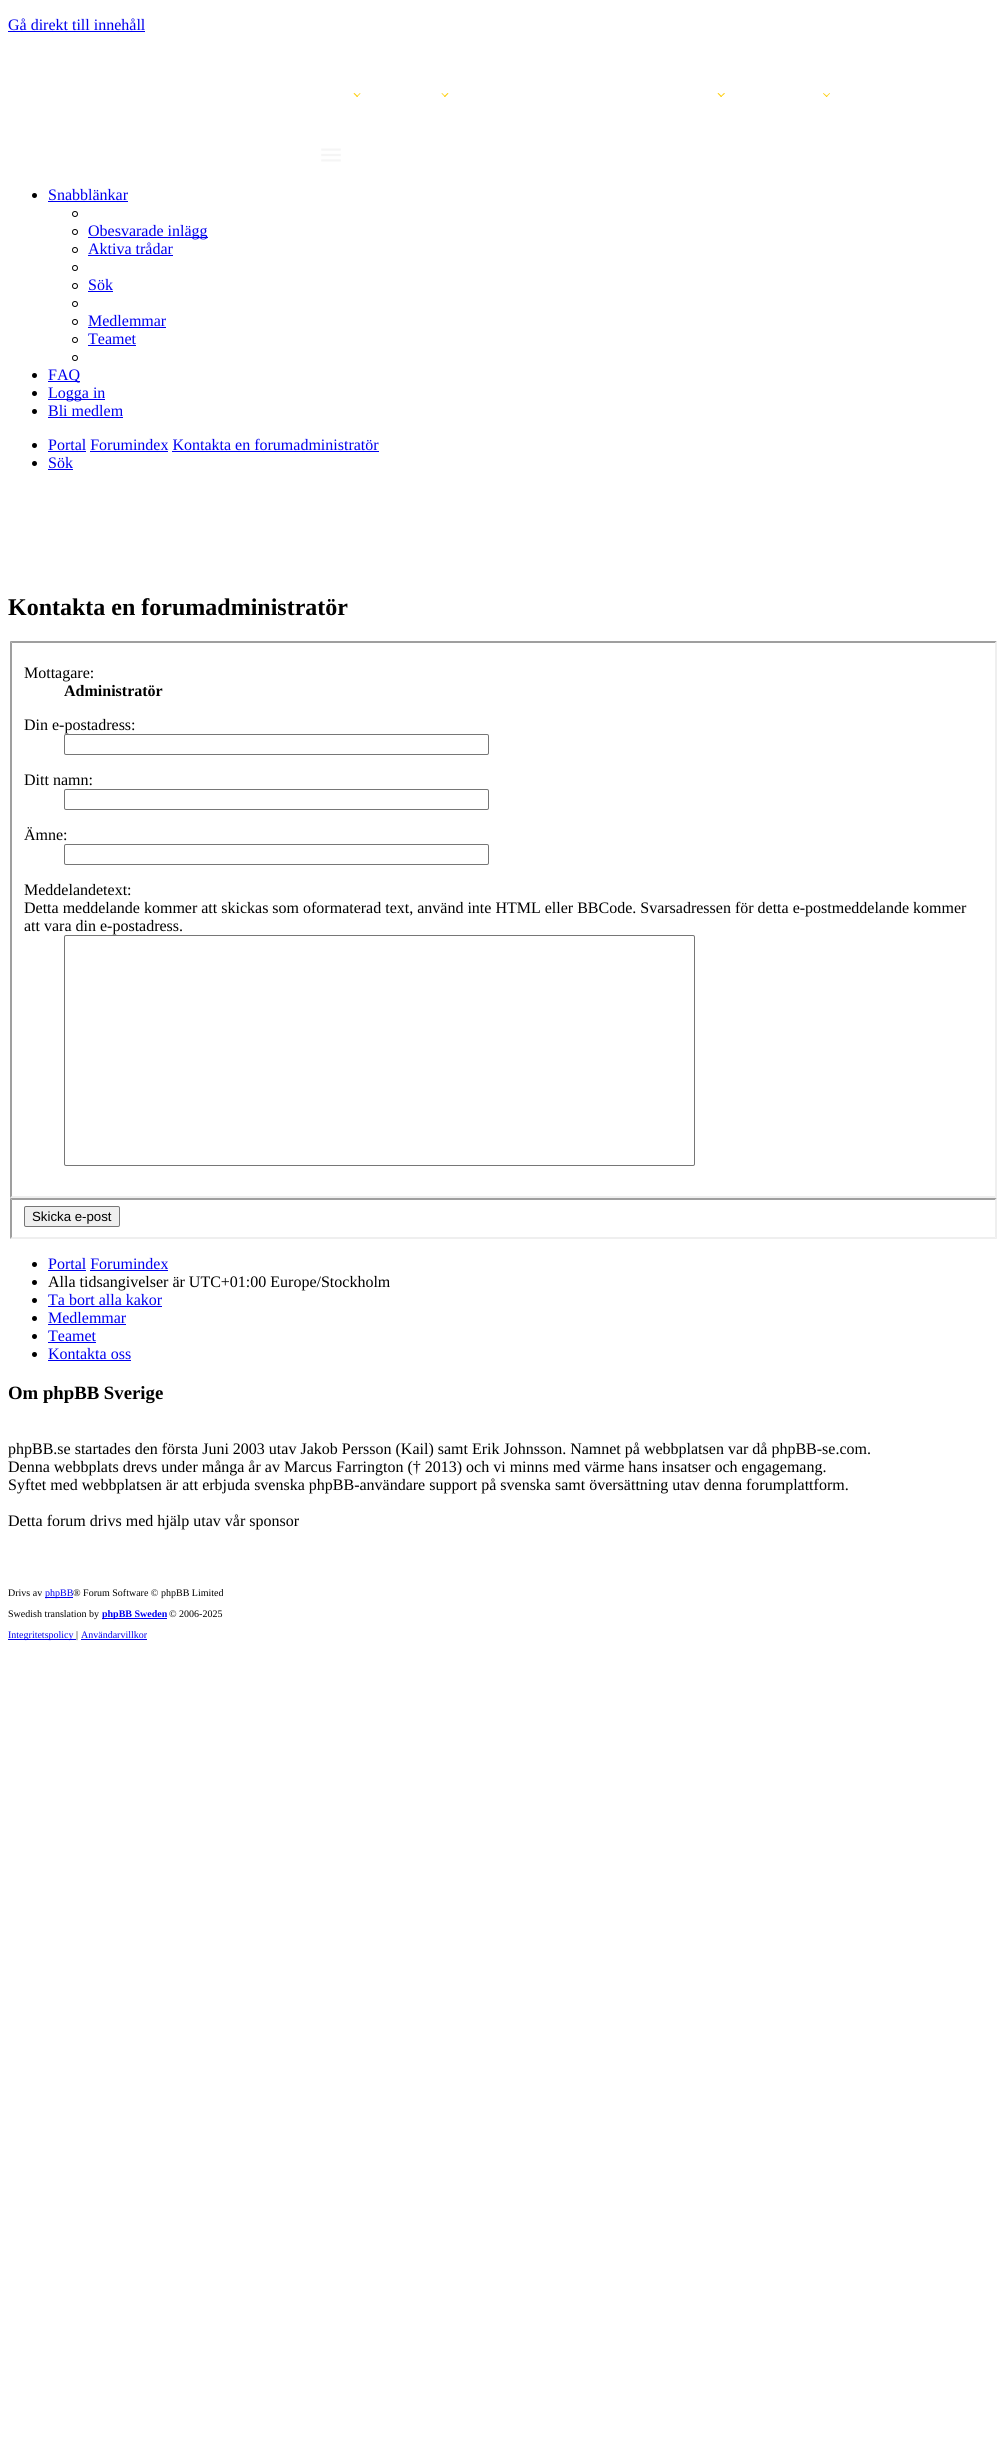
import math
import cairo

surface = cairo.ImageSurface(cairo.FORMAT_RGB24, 1007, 2445)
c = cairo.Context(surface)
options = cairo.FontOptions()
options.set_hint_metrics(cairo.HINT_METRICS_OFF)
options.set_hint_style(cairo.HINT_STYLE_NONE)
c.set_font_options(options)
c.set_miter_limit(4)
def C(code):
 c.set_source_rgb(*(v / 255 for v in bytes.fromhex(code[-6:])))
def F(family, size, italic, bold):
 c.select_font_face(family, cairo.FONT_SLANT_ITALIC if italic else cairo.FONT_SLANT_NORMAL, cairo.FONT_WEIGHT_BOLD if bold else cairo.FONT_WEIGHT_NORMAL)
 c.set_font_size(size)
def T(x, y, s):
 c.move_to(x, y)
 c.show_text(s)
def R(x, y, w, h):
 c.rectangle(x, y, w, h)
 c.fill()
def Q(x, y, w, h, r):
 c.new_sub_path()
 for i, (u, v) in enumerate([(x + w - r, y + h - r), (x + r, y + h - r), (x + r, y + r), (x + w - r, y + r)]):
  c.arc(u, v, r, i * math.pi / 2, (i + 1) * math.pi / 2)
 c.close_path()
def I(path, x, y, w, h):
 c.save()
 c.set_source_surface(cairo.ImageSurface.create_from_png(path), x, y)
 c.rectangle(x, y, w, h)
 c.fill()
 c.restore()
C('ffffff')
c.paint()
F('Liberation Serif',16,0,0)
C('0000ee')
T(8,30,'Gå direkt till innehåll')
R(8,31,137,1)
C('fecc02')
c.new_path()
c.move_to(360,93)
c.line_to(360.5,93.5)
c.line_to(357,97)
c.line_to(356.5,96.5)
c.close_path()
c.fill()
c.new_path()
c.move_to(354.5,93)
c.line_to(358,96.5)
c.line_to(357,97)
c.line_to(353.5,93.5)
c.close_path()
c.fill()
c.new_path()
c.move_to(447.5,93)
c.line_to(448.5,93.5)
c.line_to(445,97)
c.line_to(444,96.5)
c.close_path()
c.fill()
c.new_path()
c.move_to(442,93)
c.line_to(445.5,96.5)
c.line_to(445,97)
c.line_to(441.5,93.5)
c.close_path()
c.fill()
c.new_path()
c.move_to(724,93)
c.line_to(725,93.5)
c.line_to(721,97)
c.line_to(720.5,96.5)
c.close_path()
c.fill()
c.new_path()
c.move_to(718.5,93)
c.line_to(722,96.5)
c.line_to(721,97)
c.line_to(717.5,93.5)
c.close_path()
c.fill()
c.new_path()
c.move_to(829.5,93)
c.line_to(830,93.5)
c.line_to(826.5,97)
c.line_to(826,96.5)
c.close_path()
c.fill()
c.new_path()
c.move_to(823.5,93)
c.line_to(827.5,96.5)
c.line_to(826.5,97)
c.line_to(823,93.5)
c.close_path()
c.fill()
I('1.png',321,148,20,14)
C('000000')
c.arc(34.5,195.5,2.5,0,2 * math.pi)
c.fill()
C('0000ee')
T(48,200,'Snabblänkar')
R(48,201,80,1)
c.new_path()
c.arc(75,214,2.5,0,2 * math.pi)
C('000000')
c.set_line_width(1)
c.stroke()
c.arc(75,232,2.5,0,2 * math.pi)
c.stroke()
C('0000ee')
R(88,237,120,1)
T(88,236,'Obesvarade inlägg')
c.new_path()
c.arc(75,250,2.5,0,2 * math.pi)
C('000000')
c.stroke()
C('0000ee')
T(88,254,'Aktiva trådar')
R(88,255,85,1)
c.new_path()
c.arc(75,268,2.5,0,2 * math.pi)
C('000000')
c.stroke()
c.arc(75,286,2.5,0,2 * math.pi)
c.stroke()
C('0000ee')
T(88,290,'Sök')
R(88,291,25,1)
c.new_path()
c.arc(75,304,2.5,0,2 * math.pi)
C('000000')
c.stroke()
c.arc(75,322,2.5,0,2 * math.pi)
c.stroke()
C('0000ee')
T(88,326,'Medlemmar')
R(88,327,78,1)
c.new_path()
c.arc(75,340,2.5,0,2 * math.pi)
C('000000')
c.stroke()
C('0000ee')
T(88,344,'Teamet')
R(88,345,48,1)
c.new_path()
c.arc(75,358,2.5,0,2 * math.pi)
C('000000')
c.stroke()
c.arc(34.5,375.5,2.5,0,2 * math.pi)
c.fill()
C('0000ee')
R(48,381,32,1)
T(48,380,'FAQ')
C('000000')
c.new_path()
c.arc(34.5,393.5,2.5,0,2 * math.pi)
c.fill()
C('0000ee')
R(48,399,57,1)
T(48,398,'Logga in')
C('000000')
c.new_path()
c.arc(34.5,411.5,2.5,0,2 * math.pi)
c.fill()
C('0000ee')
T(48,416,'Bli medlem')
R(48,417,75,1)
C('000000')
c.new_path()
c.arc(34.5,445.5,2.5,0,2 * math.pi)
c.fill()
C('0000ee')
T(48,450,'Portal Forumindex Kontakta en forumadministratör')
R(48,451,38,1)
R(90,451,78,1)
R(172,451,207,1)
C('000000')
c.new_path()
c.arc(34.5,463.5,2.5,0,2 * math.pi)
c.fill()
C('0000ee')
T(48,468,'Sök')
R(48,469,25,1)
F('Liberation Serif',24,0,1)
C('000000')
T(8,615,'Kontakta en forumadministratör')
C('9f9f9f')
c.new_path()
c.move_to(10,641)
c.line_to(997,641)
c.line_to(995,643)
c.line_to(12,643)
c.close_path()
c.fill()
C('efefef')
c.new_path()
c.move_to(997,641)
c.line_to(997,1198)
c.line_to(995,1196)
c.line_to(995,643)
c.close_path()
c.fill()
c.new_path()
c.move_to(997,1198)
c.line_to(10,1198)
c.line_to(12,1196)
c.line_to(995,1196)
c.close_path()
c.fill()
C('9f9f9f')
c.new_path()
c.move_to(10,1198)
c.line_to(10,641)
c.line_to(12,643)
c.line_to(12,1196)
c.close_path()
c.fill()
F('Liberation Serif',16,0,0)
C('000000')
T(24,678,'Mottagare:')
F('Liberation Serif',16,0,1)
T(64,696,'Administratör')
F('Liberation Serif',16,0,0)
T(24,730,'Din e-postadress:')
Q(64.5,734.5,424,20,1.5)
C('767676')
c.stroke()
C('000000')
T(24,785,'Ditt namn:')
Q(64.5,789.5,424,20,1.5)
C('767676')
c.stroke()
C('000000')
T(24,840,'Ämne:')
Q(64.5,844.5,424,20,1.5)
C('767676')
c.stroke()
C('000000')
T(24,895,'Meddelandetext:')
T(24,913,'Detta meddelande kommer att skickas som oformaterad text, använd inte HTML eller BBCode. Svarsadressen för detta e-postmeddelande kommer')
T(24,931,'att vara din e-postadress.')
Q(64.5,935.5,630,230,1.5)
C('767676')
c.stroke()
C('9f9f9f')
c.new_path()
c.move_to(10,1198)
c.line_to(997,1198)
c.line_to(995,1200)
c.line_to(12,1200)
c.close_path()
c.fill()
C('efefef')
c.new_path()
c.move_to(997,1198)
c.line_to(997,1239)
c.line_to(995,1237)
c.line_to(995,1200)
c.close_path()
c.fill()
c.new_path()
c.move_to(997,1239)
c.line_to(10,1239)
c.line_to(12,1237)
c.line_to(995,1237)
c.close_path()
c.fill()
C('9f9f9f')
c.new_path()
c.move_to(10,1239)
c.line_to(10,1198)
c.line_to(12,1200)
c.line_to(12,1237)
c.close_path()
c.fill()
C('efefef')
Q(24.5,1206.5,95,20,1.5)
c.fill_preserve()
C('767676')
c.stroke()
F('Liberation Sans',13.25,0,0)
C('000000')
T(32,1221,'Skicka e-post')
c.new_path()
c.arc(34.5,1264.5,2.5,0,2 * math.pi)
c.fill()
F('Liberation Serif',16,0,0)
C('0000ee')
T(48,1269,'Portal Forumindex')
R(48,1270,38,1)
R(90,1270,78,1)
C('000000')
c.new_path()
c.arc(34.5,1282.5,2.5,0,2 * math.pi)
c.fill()
T(48,1287,'Alla tidsangivelser är UTC+01:00 Europe/Stockholm')
c.new_path()
c.arc(34.5,1300.5,2.5,0,2 * math.pi)
c.fill()
C('0000ee')
T(48,1305,'Ta bort alla kakor')
R(48,1306,114,1)
C('000000')
c.new_path()
c.arc(34.5,1318.5,2.5,0,2 * math.pi)
c.fill()
C('0000ee')
T(48,1323,'Medlemmar')
R(48,1324,78,1)
C('000000')
c.new_path()
c.arc(34.5,1336.5,2.5,0,2 * math.pi)
c.fill()
C('0000ee')
T(48,1341,'Teamet')
R(48,1342,48,1)
C('000000')
c.new_path()
c.arc(34.5,1354.5,2.5,0,2 * math.pi)
c.fill()
C('0000ee')
T(48,1359,'Kontakta oss')
R(48,1360,83,1)
F('Liberation Serif',18.75,0,1)
C('000000')
T(8,1399,'Om phpBB Sverige')
F('Liberation Serif',16,0,0)
T(8,1454,'phpBB.se startades den första Juni 2003 utav Jakob Persson (Kail) samt Erik Johnsson. Namnet på webbplatsen var då phpBB-se.com.')
T(8,1472,'Denna webbplats drevs under många år av Marcus Farrington († 2013) och vi minns med värme hans insatser och engagemang.')
T(8,1490,'Syftet med webbplatsen är att erbjuda svenska phpBB-användare support på svenska samt översättning utav denna forumplattform.')
T(8,1526,'Detta forum drivs med hjälp utav vår sponsor')
F('Liberation Serif',10,0,0)
T(8,1596,'Drivs av')
C('0000ee')
R(45,1597,28,1)
T(45,1596,'phpBB')
C('000000')
T(73,1596,'® Forum Software © phpBB Limited')
T(8,1617,'Swedish translation by')
C('0000ee')
R(102,1618,65,1)
F('Liberation Serif',10,0,1)
T(102,1617,'phpBB Sweden')
F('Liberation Serif',10,0,0)
C('000000')
T(169,1617,'© 2006-2025')
C('0000ee')
R(8,1639,68,1)
T(8,1638,'Integritetspolicy')
C('000000')
T(76,1638,'|')
C('0000ee')
T(81,1638,'Användarvillkor')
R(81,1639,66,1)
surface.write_to_png('o.png')
